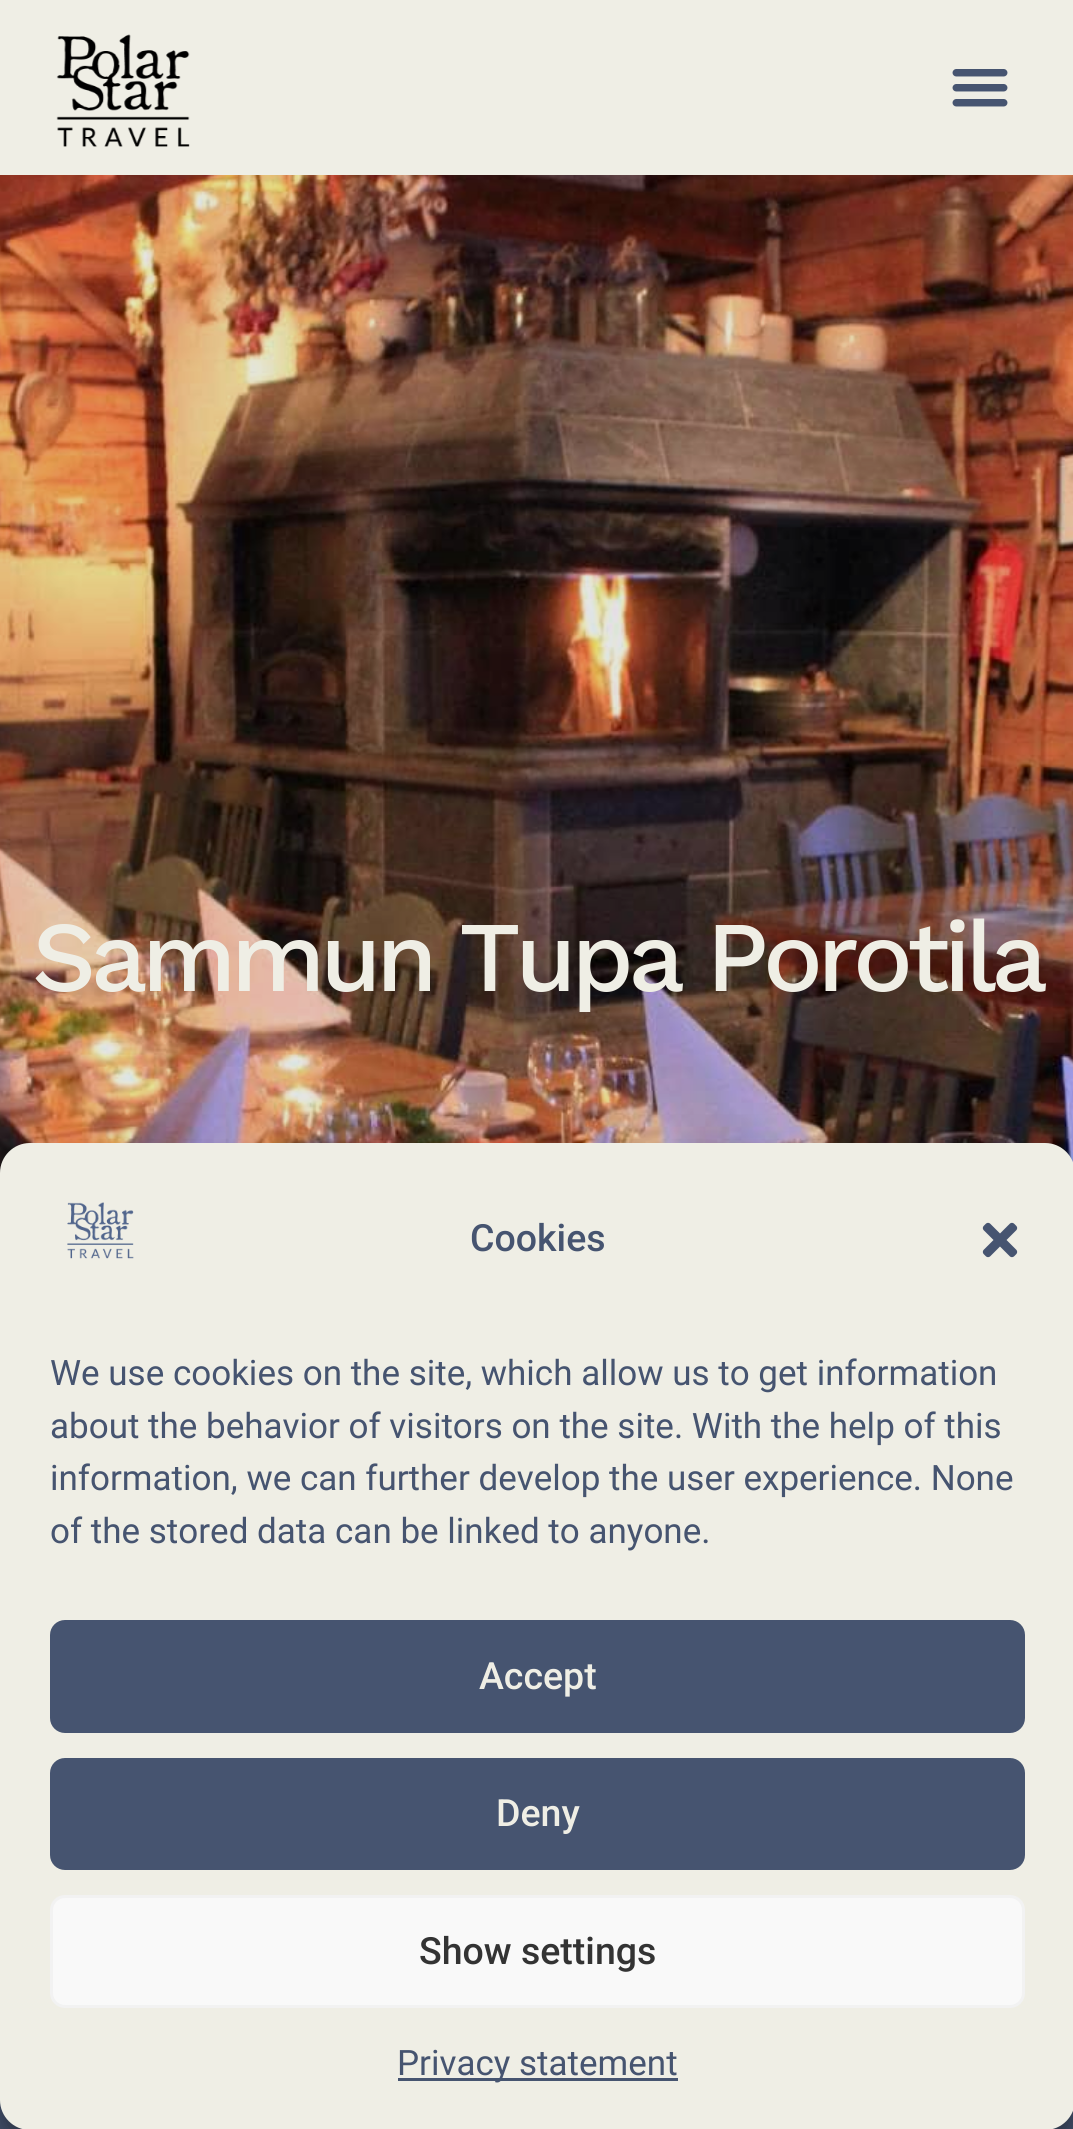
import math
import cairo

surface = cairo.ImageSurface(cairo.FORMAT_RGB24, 1073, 2129)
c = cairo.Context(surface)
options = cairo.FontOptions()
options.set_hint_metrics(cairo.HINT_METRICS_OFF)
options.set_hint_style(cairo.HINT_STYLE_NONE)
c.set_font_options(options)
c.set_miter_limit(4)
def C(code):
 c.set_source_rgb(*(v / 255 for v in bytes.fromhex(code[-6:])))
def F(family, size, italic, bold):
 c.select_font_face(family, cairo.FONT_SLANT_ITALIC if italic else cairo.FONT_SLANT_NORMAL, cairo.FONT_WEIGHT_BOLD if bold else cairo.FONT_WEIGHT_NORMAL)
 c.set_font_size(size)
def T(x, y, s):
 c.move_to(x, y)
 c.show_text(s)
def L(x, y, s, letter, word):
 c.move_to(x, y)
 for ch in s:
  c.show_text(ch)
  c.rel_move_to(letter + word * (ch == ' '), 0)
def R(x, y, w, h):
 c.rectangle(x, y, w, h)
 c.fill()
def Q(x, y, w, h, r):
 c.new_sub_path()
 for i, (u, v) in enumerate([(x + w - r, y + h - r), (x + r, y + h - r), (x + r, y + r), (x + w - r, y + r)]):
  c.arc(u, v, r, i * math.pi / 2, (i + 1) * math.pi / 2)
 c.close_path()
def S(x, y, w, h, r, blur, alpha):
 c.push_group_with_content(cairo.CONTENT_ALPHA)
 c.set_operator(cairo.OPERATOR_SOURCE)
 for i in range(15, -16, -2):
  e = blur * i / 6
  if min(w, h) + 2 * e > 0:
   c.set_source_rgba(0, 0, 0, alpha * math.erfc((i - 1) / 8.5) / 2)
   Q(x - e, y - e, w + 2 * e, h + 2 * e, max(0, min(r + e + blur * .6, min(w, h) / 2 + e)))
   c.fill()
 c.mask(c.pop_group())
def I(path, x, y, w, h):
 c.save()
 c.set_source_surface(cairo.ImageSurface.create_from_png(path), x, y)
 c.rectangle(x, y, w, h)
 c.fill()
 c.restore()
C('ffffff')
c.paint()
C('efeee5')
R(0,0,1073,175)
I('1.png',56,34,134,113)
I('2.png',952,69,56,38)
I('3.png',0,175,1073,998)
F('Work Sans Medium',100,0,0)
L(32,991,'Sammun Tupa Porotila',-5.75,0)
C('465470')
R(0,2100,1073,29)
C('000000')
S(0,1158,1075,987,30,7.5,.23)
S(0,1168,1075,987,30,25,.19)
C('efeee5')
Q(0,1143,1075,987,30)
c.fill()
I('4.png',67,1202,67,57)
F('Roboto Medium',37.5,0,0)
C('465470')
T(470,1251,'Cookies')
I('5.png',982,1222,36,36)
F('Roboto',35,0,0)
T(50,1385,'We use cookies on the site, which allow us to get information')
T(50,1438,'about the behavior of visitors on the site. With the help of this')
T(50,1490,'information, we can further develop the user experience. None')
T(50,1543,'of the stored data can be linked to anyone.')
Q(51.5,1621.5,972,110,13.5)
c.fill_preserve()
c.set_line_width(3)
c.stroke()
F('Roboto Medium',37.5,0,0)
C('efeee5')
T(479,1689,'Accept')
C('465470')
Q(51.5,1759.5,972,109,13.5)
c.fill_preserve()
c.stroke()
C('efeee5')
T(496,1826,'Deny')
C('f9f9f9')
Q(51.5,1896.5,972,110,13.5)
c.fill_preserve()
C('f2f2f2')
c.stroke()
C('333333')
T(419,1964,'Show settings')
C('465470')
R(398,2078,280,3)
F('Roboto',35,0,0)
T(397,2075,'Privacy statement')
surface.write_to_png('o.png')
